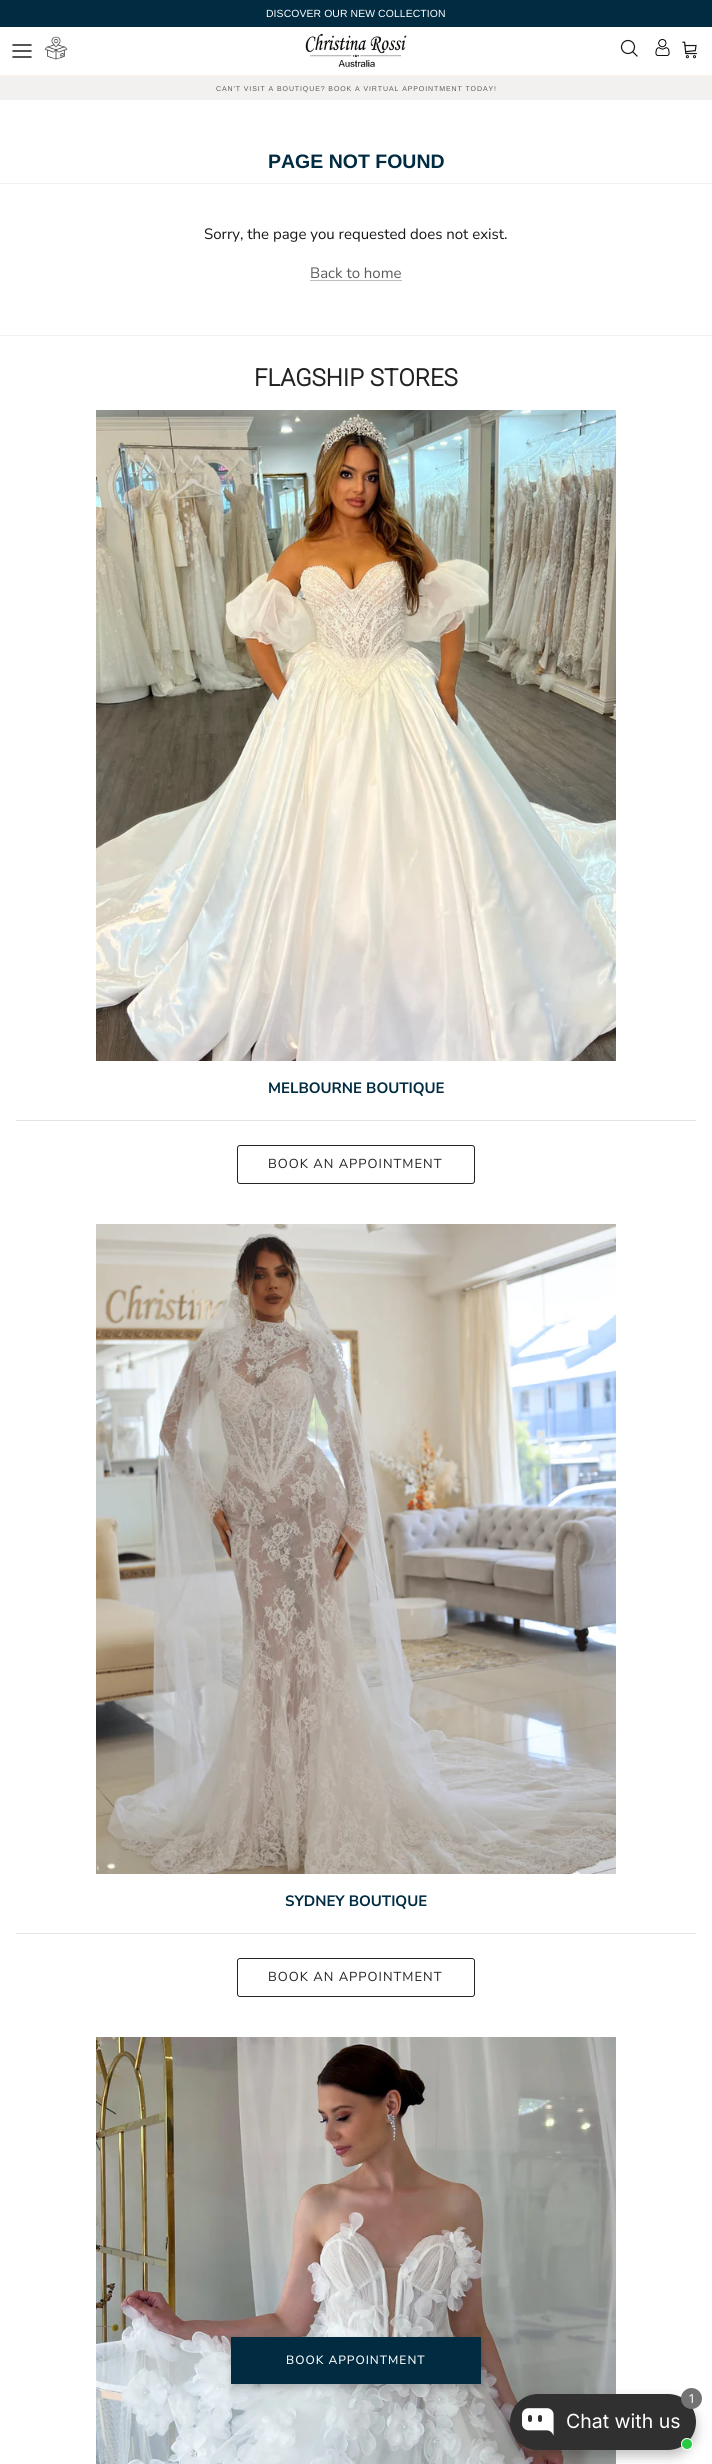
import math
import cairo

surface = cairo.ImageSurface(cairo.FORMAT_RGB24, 712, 2464)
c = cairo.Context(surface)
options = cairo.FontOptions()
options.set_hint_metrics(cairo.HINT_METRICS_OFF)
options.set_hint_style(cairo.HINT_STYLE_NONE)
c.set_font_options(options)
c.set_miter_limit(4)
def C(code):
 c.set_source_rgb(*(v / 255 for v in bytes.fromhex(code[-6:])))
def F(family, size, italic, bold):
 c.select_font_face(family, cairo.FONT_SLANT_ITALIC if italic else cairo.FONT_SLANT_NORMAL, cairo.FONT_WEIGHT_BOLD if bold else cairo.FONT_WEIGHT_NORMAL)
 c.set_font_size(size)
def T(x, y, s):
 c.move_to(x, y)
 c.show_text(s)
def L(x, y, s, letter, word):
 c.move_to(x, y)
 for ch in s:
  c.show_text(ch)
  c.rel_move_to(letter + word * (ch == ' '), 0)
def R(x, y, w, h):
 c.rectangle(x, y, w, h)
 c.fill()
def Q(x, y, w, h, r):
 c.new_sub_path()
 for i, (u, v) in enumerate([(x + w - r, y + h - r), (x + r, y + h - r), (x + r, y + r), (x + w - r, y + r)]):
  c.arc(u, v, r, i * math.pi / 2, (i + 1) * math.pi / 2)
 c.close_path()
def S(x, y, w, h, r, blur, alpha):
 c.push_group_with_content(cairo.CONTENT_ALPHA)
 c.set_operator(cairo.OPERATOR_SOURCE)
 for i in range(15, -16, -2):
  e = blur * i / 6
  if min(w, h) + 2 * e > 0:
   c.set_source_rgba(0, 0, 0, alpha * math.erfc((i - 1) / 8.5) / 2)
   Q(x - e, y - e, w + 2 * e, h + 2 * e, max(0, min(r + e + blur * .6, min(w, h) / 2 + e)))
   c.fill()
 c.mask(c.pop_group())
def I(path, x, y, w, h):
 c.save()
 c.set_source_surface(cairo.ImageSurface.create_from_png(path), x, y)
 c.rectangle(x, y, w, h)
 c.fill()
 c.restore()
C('ffffff')
c.paint()
C('002b41')
R(0,0,712,27)
F('Liberation Sans',10.4,0,0)
C('ffffff')
L(266,17,'DISCOVER OUR NEW COLLECTION',.1,0)
C('faf2e6')
R(0,75,712,1)
I('1.png',305,33,102,35)
c.new_path()
c.move_to(13,51)
c.line_to(31,51)
c.move_to(13,45)
c.line_to(31,45)
c.move_to(13,57)
c.line_to(31,57)
C('171717')
c.set_line_width(1.5)
c.set_line_cap(cairo.LINE_CAP_ROUND)
c.set_line_join(cairo.LINE_JOIN_ROUND)
c.stroke()
I('2.png',44,36,24,24)
c.arc(628,47,6.5,0,2 * math.pi)
c.set_line_width(1.2)
c.set_line_cap(cairo.LINE_CAP_BUTT)
c.set_line_join(cairo.LINE_JOIN_MITER)
c.stroke()
c.new_path()
c.move_to(633,52)
c.line_to(637,56)
c.set_line_cap(cairo.LINE_CAP_SQUARE)
c.stroke()
I('3.png',655,39,15,17)
I('4.png',682,41,15,18)
C('f2f1ef')
R(0,76,712,24)
F('Liberation Sans',7,0,0)
C('5c5c5c')
L(216,91,'CAN\'T VISIT A BOUTIQUE? BOOK A VIRTUAL APPOINTMENT TODAY!',.9,0)
C('f2f1ef')
R(0,183,712,1)
F('Liberation Sans',19.5,0,1)
C('002b41')
T(268,168,'PAGE NOT FOUND')
F('Nunito Sans',15,0,0)
C('171717')
T(204,239,'Sorry, the page you requested does not exist.')
C('5c5c5c')
T(310,278,'Back to home')
C('bebebe')
R(310,280,92,1)
C('f2f1ef')
R(0,335,712,1)
F('Roboto',24,0,1)
C('202223')
T(254,386,'FLAGSHIP STORES')
I('5.png',96,410,520,651)
C('e4e4e4')
R(16,1120,680,1)
F('Nunito Sans',15,0,1)
C('002b41')
T(268,1093,'MELBOURNE BOUTIQUE')
Q(237.5,1145.5,237,38,2.5)
C('232323')
c.set_line_width(1)
c.set_line_cap(cairo.LINE_CAP_BUTT)
c.stroke()
F('Nunito Sans',13,0,0)
C('202223')
L(268,1168,'BOOK AN APPOINTMENT',1,0)
I('6.png',96,1224,520,650)
C('e4e4e4')
R(16,1933,680,1)
F('Nunito Sans',15,0,1)
C('002b41')
T(285,1906,'SYDNEY BOUTIQUE')
Q(237.5,1958.5,237,38,2.5)
C('232323')
c.stroke()
F('Nunito Sans',13,0,0)
C('202223')
L(268,1981,'BOOK AN APPOINTMENT',1,0)
I('7.png',96,2037,520,427)
C('000000')
S(231,2341,250,47,0,4,.2)
C('002b41')
R(231,2337,250,47)
F('Nunito Sans Medium',12,0,0)
C('ffffff')
L(286,2364,'BOOK APPOINTMENT',1,0)
C('000000')
S(510,2400,186,56,28,6,.25)
C('303030')
Q(510,2394,186,56,28)
c.fill()
C('737373')
c.arc(691.5,2398.5,10.5,0,2 * math.pi)
c.fill()
F('Inter',12,0,0)
C('ffffff')
T(689,2403,'1')
I('8.png',522,2408,32,28)
F('Inter',19.5,0,0)
T(566,2428,'Chat with us')
C('27ca40')
c.new_path()
c.arc(687,2444,5.5,0,2 * math.pi)
c.fill_preserve()
C('ffffff')
c.stroke()
surface.write_to_png('o.png')
